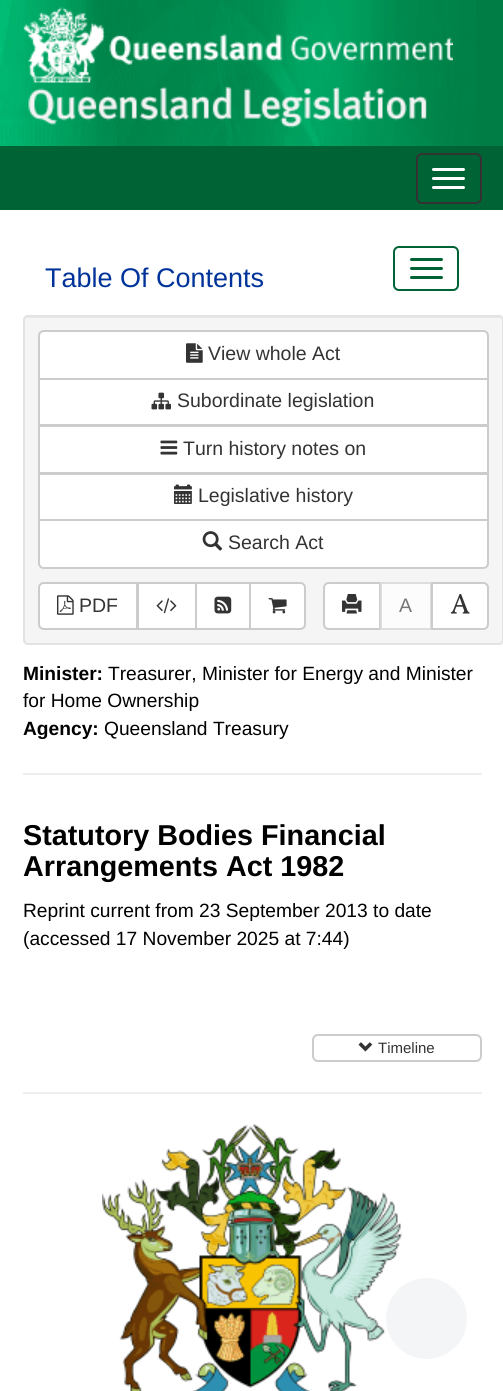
import math
import cairo

surface = cairo.ImageSurface(cairo.FORMAT_RGB24, 503, 1391)
c = cairo.Context(surface)
options = cairo.FontOptions()
options.set_hint_metrics(cairo.HINT_METRICS_OFF)
options.set_hint_style(cairo.HINT_STYLE_NONE)
c.set_font_options(options)
c.set_miter_limit(4)
def C(code):
 c.set_source_rgb(*(v / 255 for v in bytes.fromhex(code[-6:])))
def F(family, size, italic, bold):
 c.select_font_face(family, cairo.FONT_SLANT_ITALIC if italic else cairo.FONT_SLANT_NORMAL, cairo.FONT_WEIGHT_BOLD if bold else cairo.FONT_WEIGHT_NORMAL)
 c.set_font_size(size)
def T(x, y, s):
 c.move_to(x, y)
 c.show_text(s)
def R(x, y, w, h):
 c.rectangle(x, y, w, h)
 c.fill()
def Q(x, y, w, h, r):
 c.new_sub_path()
 for i, (u, v) in enumerate([(x + w - r, y + h - r), (x + r, y + h - r), (x + r, y + r), (x + w - r, y + r)]):
  c.arc(u, v, r, i * math.pi / 2, (i + 1) * math.pi / 2)
 c.close_path()
def I(path, x, y, w, h):
 c.save()
 c.set_source_surface(cairo.ImageSurface.create_from_png(path), x, y)
 c.rectangle(x, y, w, h)
 c.fill()
 c.restore()
C('ffffff')
c.paint()
C('007d45')
R(476,0,27,146)
I('1.png',0,0,476,146)
I('2.png',23,7,430,76)
I('3.png',28,86,399,42)
C('006336')
R(0,146,503,64)
Q(417,154,64,49,5)
C('333333')
c.stroke()
C('ffffff')
Q(432,168,33,3,1.5)
c.fill()
Q(432,177,33,3,1.5)
c.fill()
Q(432,186,33,3,1.5)
c.fill()
F('Liberation Sans',27,0,0)
C('003399')
T(45,287,'Table Of Contents')
Q(394,247,64,43,5)
C('006336')
c.stroke()
Q(410,258,33,3,1.5)
c.fill()
Q(410,267,33,3,1.5)
c.fill()
Q(410,276,33,3,1.5)
c.fill()
C('f5f5f5')
Q(23,315,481,330,5)
c.fill()
C('e9e9e9')
c.new_path()
c.move_to(27,318)
c.line_to(500,318)
c.curve_to(501,318,502,319,502,321)
c.line_to(502,643)
c.curve_to(503,643,503,642,503,641)
c.line_to(503,320)
c.curve_to(503,318,502,317,500,317)
c.line_to(27,317)
c.curve_to(25,317,24,318,24,320)
c.line_to(24,321)
c.curve_to(24,319,25,318,27,318)
c.close_path()
c.fill()
Q(24,316,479,328,4)
C('e3e3e3')
c.stroke()
C('ffffff')
c.new_path()
c.move_to(44,331)
c.line_to(483,331)
c.curve_to(486,331,488,333,488,336)
c.line_to(488,379)
c.line_to(39,379)
c.line_to(39,336)
c.curve_to(39,333,41,331,44,331)
c.close_path()
c.fill_preserve()
C('cccccc')
c.stroke()
I('4.png',186,343,17,20)
F('Liberation Sans',19.5,0,0)
C('333333')
T(208,360,'View whole Act')
C('ffffff')
c.rectangle(39,379,449,46)
c.fill_preserve()
C('cccccc')
c.stroke()
I('5.png',151,392,20,18)
C('333333')
T(177,407,'Subordinate legislation')
C('ffffff')
c.rectangle(39,426,449,47)
c.fill_preserve()
C('cccccc')
c.stroke()
I('6.png',160,440,18,15)
C('333333')
T(183,455,'Turn history notes on')
C('ffffff')
c.rectangle(39,474,449,46)
c.fill_preserve()
C('cccccc')
c.stroke()
I('7.png',174,484,18,20)
C('333333')
T(198,502,'Legislative history')
C('ffffff')
c.new_path()
c.move_to(39,520)
c.line_to(488,520)
c.line_to(488,563)
c.curve_to(488,566,486,568,483,568)
c.line_to(44,568)
c.curve_to(41,568,39,566,39,563)
c.close_path()
c.fill_preserve()
C('cccccc')
c.stroke()
I('8.png',202,531,21,20)
C('333333')
T(228,549,'Search Act')
C('ffffff')
c.new_path()
c.move_to(44,583)
c.line_to(137,583)
c.line_to(137,629)
c.line_to(44,629)
c.curve_to(41,629,39,627,39,624)
c.line_to(39,588)
c.curve_to(39,585,41,583,44,583)
c.close_path()
c.fill_preserve()
C('cccccc')
c.stroke()
I('9.png',57,595,17,20)
C('333333')
T(79,612,'PDF')
C('ffffff')
c.rectangle(138,583,58,46)
c.fill_preserve()
C('cccccc')
c.stroke()
I('10.png',156,598,21,16)
C('ffffff')
c.rectangle(196,583,54,46)
c.fill_preserve()
C('cccccc')
c.stroke()
I('11.png',214,596,18,18)
C('ffffff')
c.new_path()
c.move_to(250,583)
c.line_to(300,583)
c.curve_to(303,583,305,585,305,588)
c.line_to(305,624)
c.curve_to(305,627,303,629,300,629)
c.line_to(250,629)
c.close_path()
c.fill_preserve()
C('cccccc')
c.stroke()
I('12.png',268,598,19,16)
C('ffffff')
c.new_path()
c.move_to(329,583)
c.line_to(380,583)
c.line_to(380,629)
c.line_to(329,629)
c.curve_to(326,629,324,627,324,624)
c.line_to(324,588)
c.curve_to(324,585,326,583,329,583)
c.close_path()
c.fill_preserve()
C('cccccc')
c.stroke()
I('13.png',342,594,20,20)
c.set_source_rgba(1,1,1,0.65)
R(380,582,51,48)
c.rectangle(381,583,50,46)
c.set_source_rgba(0.8,0.8,0.8,0.65)
c.stroke()
C('777777')
T(399,612,'A')
C('ffffff')
c.new_path()
c.move_to(432,583)
c.line_to(483,583)
c.curve_to(486,583,488,585,488,588)
c.line_to(488,624)
c.curve_to(488,627,486,629,483,629)
c.line_to(432,629)
c.close_path()
c.fill_preserve()
C('cccccc')
c.stroke()
I('14.png',450,594,20,20)
F('Liberation Sans',19.2,0,1)
C('000000')
T(23,680,'Minister:')
F('Liberation Sans',19.2,0,0)
T(108,680,'Treasurer, Minister for Energy and Minister')
T(23,707,'for Home Ownership')
F('Liberation Sans',19.2,0,1)
T(23,735,'Agency:')
F('Liberation Sans',19.2,0,0)
T(104,735,'Queensland Treasury')
C('eeeeee')
R(23,773,459,2)
F('Liberation Sans',28.75,0,1)
C('000000')
T(23,845,'Statutory Bodies Financial')
T(23,876,'Arrangements Act 1982')
F('Liberation Sans',19.2,0,0)
T(23,917,'Reprint current from 23 September 2013 to date')
T(23,945,'(accessed 17 November 2025 at 7:44)')
Q(313,1035,168,26,5)
C('cccccc')
c.stroke()
I('15.png',358,1042,15,10)
F('Liberation Sans',15,0,0)
C('333333')
T(378,1053,'Timeline')
C('eeeeee')
R(23,1092,459,2)
I('16.png',102,1123,300,268)
C('f4f5f6')
c.arc(426.5,1318.5,40.5,0,2 * math.pi)
c.fill()
surface.write_to_png('o.png')
